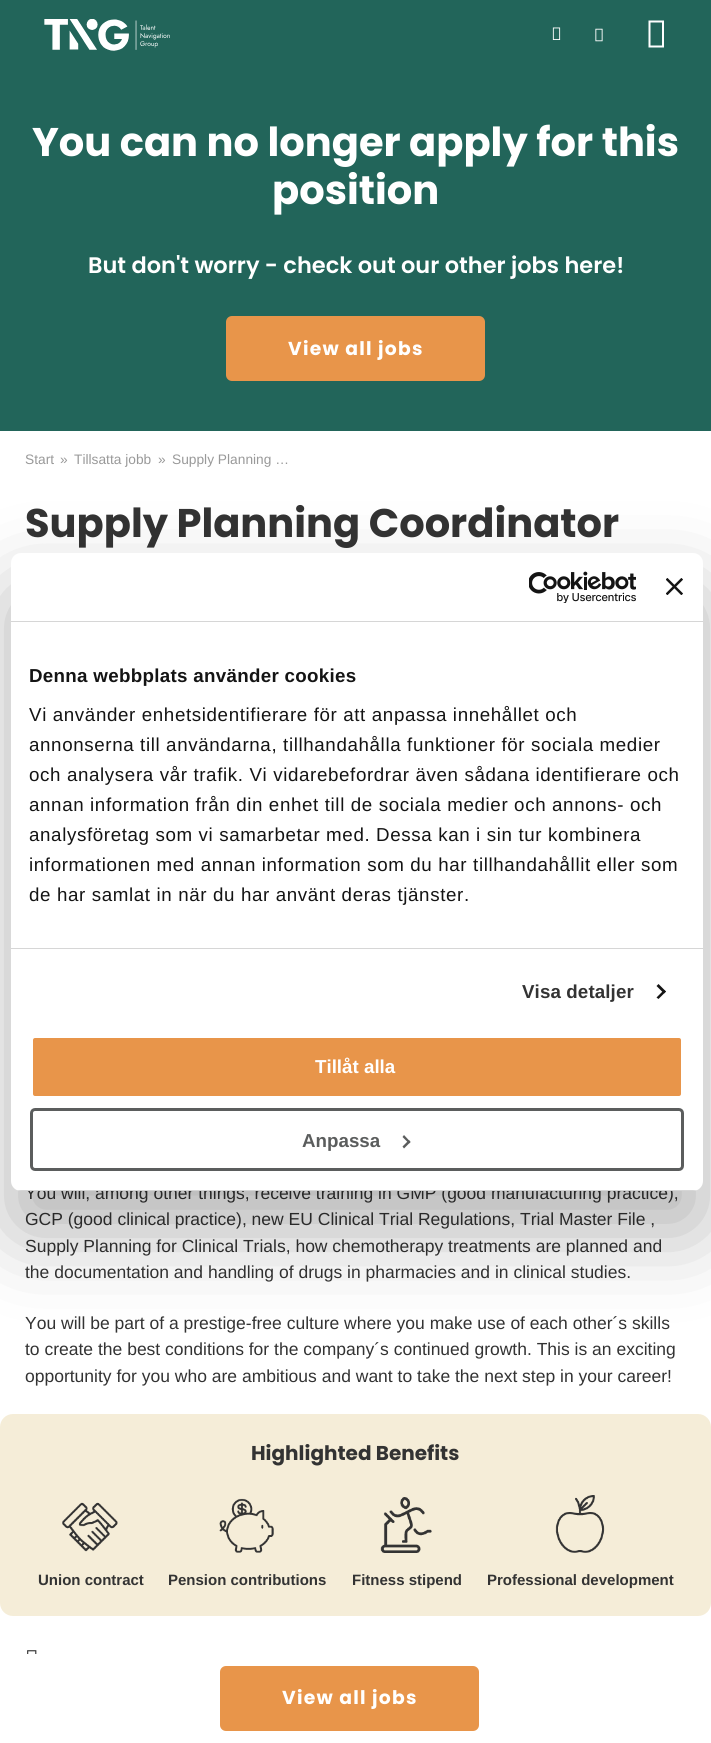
import math
import cairo

surface = cairo.ImageSurface(cairo.FORMAT_RGB24, 711, 1743)
c = cairo.Context(surface)
options = cairo.FontOptions()
options.set_hint_metrics(cairo.HINT_METRICS_OFF)
options.set_hint_style(cairo.HINT_STYLE_NONE)
c.set_font_options(options)
c.set_miter_limit(4)
def C(code):
 c.set_source_rgb(*(v / 255 for v in bytes.fromhex(code[-6:])))
def F(family, size, italic, bold):
 c.select_font_face(family, cairo.FONT_SLANT_ITALIC if italic else cairo.FONT_SLANT_NORMAL, cairo.FONT_WEIGHT_BOLD if bold else cairo.FONT_WEIGHT_NORMAL)
 c.set_font_size(size)
def T(x, y, s):
 c.move_to(x, y)
 c.show_text(s)
def L(x, y, s, letter, word):
 c.move_to(x, y)
 for ch in s:
  c.show_text(ch)
  c.rel_move_to(letter + word * (ch == ' '), 0)
def R(x, y, w, h):
 c.rectangle(x, y, w, h)
 c.fill()
def Q(x, y, w, h, r):
 c.new_sub_path()
 for i, (u, v) in enumerate([(x + w - r, y + h - r), (x + r, y + h - r), (x + r, y + r), (x + w - r, y + r)]):
  c.arc(u, v, r, i * math.pi / 2, (i + 1) * math.pi / 2)
 c.close_path()
def S(x, y, w, h, r, blur, alpha):
 c.push_group_with_content(cairo.CONTENT_ALPHA)
 c.set_operator(cairo.OPERATOR_SOURCE)
 for i in range(15, -16, -2):
  e = blur * i / 6
  if min(w, h) + 2 * e > 0:
   c.set_source_rgba(0, 0, 0, alpha * math.erfc((i - 1) / 8.5) / 2)
   Q(x - e, y - e, w + 2 * e, h + 2 * e, max(0, min(r + e + blur * .6, min(w, h) / 2 + e)))
   c.fill()
 c.mask(c.pop_group())
def I(path, x, y, w, h):
 c.save()
 c.set_source_surface(cairo.ImageSurface.create_from_png(path), x, y)
 c.rectangle(x, y, w, h)
 c.fill()
 c.restore()
C('ffffff')
c.paint()
C('22655a')
R(0,0,711,431)
I('1.png',44,19,126,32)
I('2.png',552,27,9,13)
I('3.png',595,28,8,14)
C('ffffff')
c.new_path()
c.move_to(648.5,47.5)
c.line_to(648.5,20.5)
c.line_to(664,20.5)
c.line_to(664,47.5)
c.close_path()
c.move_to(650.5,45.5)
c.line_to(662,45.5)
c.line_to(662,22.5)
c.line_to(650.5,22.5)
c.close_path()
c.fill()
F('Poppins',40,0,1)
T(32,156,'You can no longer apply for this')
T(272,204,'position')
F('Poppins SemiBold',22.5,0,0)
T(88,273,'But don\'t worry - check out our other jobs here!')
C('e8954a')
Q(226,316,259,65,6)
c.fill()
F('Poppins',18.75,0,1)
C('ffffff')
L(288,355,'View all jobs',1.25,0)
F('Liberation Sans',13.75,0,0)
C('999999')
T(25,464,'Start')
T(60,464,'»')
T(74,464,'Tillsatta jobb')
T(158,464,'»')
T(172,464,'Supply Planning …')
F('Poppins',40,0,1)
C('333333')
T(25,537,'Supply Planning Coordinator')
F('Liberation Sans',17.5,0,0)
T(25,1199,'You will, among other things, receive training in GMP (good manufacturing practice),')
T(25,1225,'GCP (good clinical practice), new EU Clinical Trial Regulations, Trial Master File ,')
T(25,1252,'Supply Planning for Clinical Trials, how chemotherapy treatments are planned and')
T(25,1278,'the documentation and handling of drugs in pharmacies and in clinical studies.')
T(25,1329,'You will be part of a prestige-free culture where you make use of each other´s skills')
T(25,1355,'to create the best conditions for the company´s continued growth. This is an exciting')
T(25,1382,'opportunity for you who are ambitious and want to take the next step in your career!')
C('f5edd8')
Q(0,1414,711,202,13)
c.fill()
F('Poppins',20,0,1)
C('333333')
T(251,1460,'Highlighted Benefits')
I('4.png',62,1502,56,50)
F('Liberation Sans',15,0,1)
T(38,1585,'Union contract')
I('5.png',219,1498,55,55)
T(168,1585,'Pension contributions')
I('6.png',380,1497,52,56)
T(352,1585,'Fitness stipend')
I('7.png',555,1495,50,58)
T(487,1585,'Professional development')
I('8.png',27,1650,10,4)
C('e8954a')
Q(220,1666,259,65,6)
c.fill()
F('Poppins',18.75,0,1)
C('ffffff')
L(282,1704,'View all jobs',1.25,0)
C('000000')
S(11,593,692,638,10,42.5,.3)
C('ffffff')
Q(11,553,692,638,10)
c.fill()
C('d6d6d6')
R(11,621,692,1)
I('9.png',529,571,107,32)
I('10.png',666,578,17,17)
R(11,948,692,1)
F('Liberation Sans',18.75,0,1)
C('141414')
L(29,682,'Denna webbplats använder cookies',.3,0)
F('Liberation Sans',18.75,0,0)
L(29,721,'Vi använder enhetsidentifierare för att anpassa innehållet och',.62,0)
L(29,751,'annonserna till användarna, tillhandahålla funktioner för sociala medier',.62,0)
L(29,781,'och analysera vår trafik. Vi vidarebefordrar även sådana identifierare och',.62,0)
L(29,811,'annan information från din enhet till de sociala medier och annons- och',.62,0)
L(29,841,'analysföretag som vi samarbetar med. Dessa kan i sin tur kombinera',.62,0)
L(29,871,'informationen med annan information som du har tillhandahållit eller som',.62,0)
L(29,901,'de har samlat in när du har använt deras tjänster.',.62,0)
F('Liberation Sans',18.75,0,1)
C('333333')
L(522,998,'Visa detaljer',.1,0)
C('141414')
c.new_path()
c.move_to(658.5,984)
c.line_to(666,991.5)
c.line_to(664,993.5)
c.line_to(656.5,986)
c.close_path()
c.fill()
c.new_path()
c.move_to(664,990)
c.line_to(666,991.5)
c.line_to(658.5,999)
c.line_to(656.5,997.5)
c.close_path()
c.fill()
c.save()
Q(11,553,692,638,10)
c.clip()
C('d6d6d6')
R(11,1190,692,1)
c.restore()
C('e8954a')
Q(31.5,1036.5,651,61,3.5)
c.fill_preserve()
C('ffffff')
c.set_line_width(3)
c.stroke()
T(315,1073,'Tillåt alla')
Q(31.5,1109.5,651,60,3.5)
C('5b5d5d')
c.stroke()
T(302,1147,'Anpassa')
c.new_path()
c.move_to(404,1135)
c.line_to(410.5,1142)
c.line_to(409,1143.5)
c.line_to(402.5,1137)
c.close_path()
c.fill()
c.new_path()
c.move_to(409,1140)
c.line_to(410.5,1142)
c.line_to(404,1148.5)
c.line_to(402.5,1146.5)
c.close_path()
c.fill()
surface.write_to_png('o.png')
